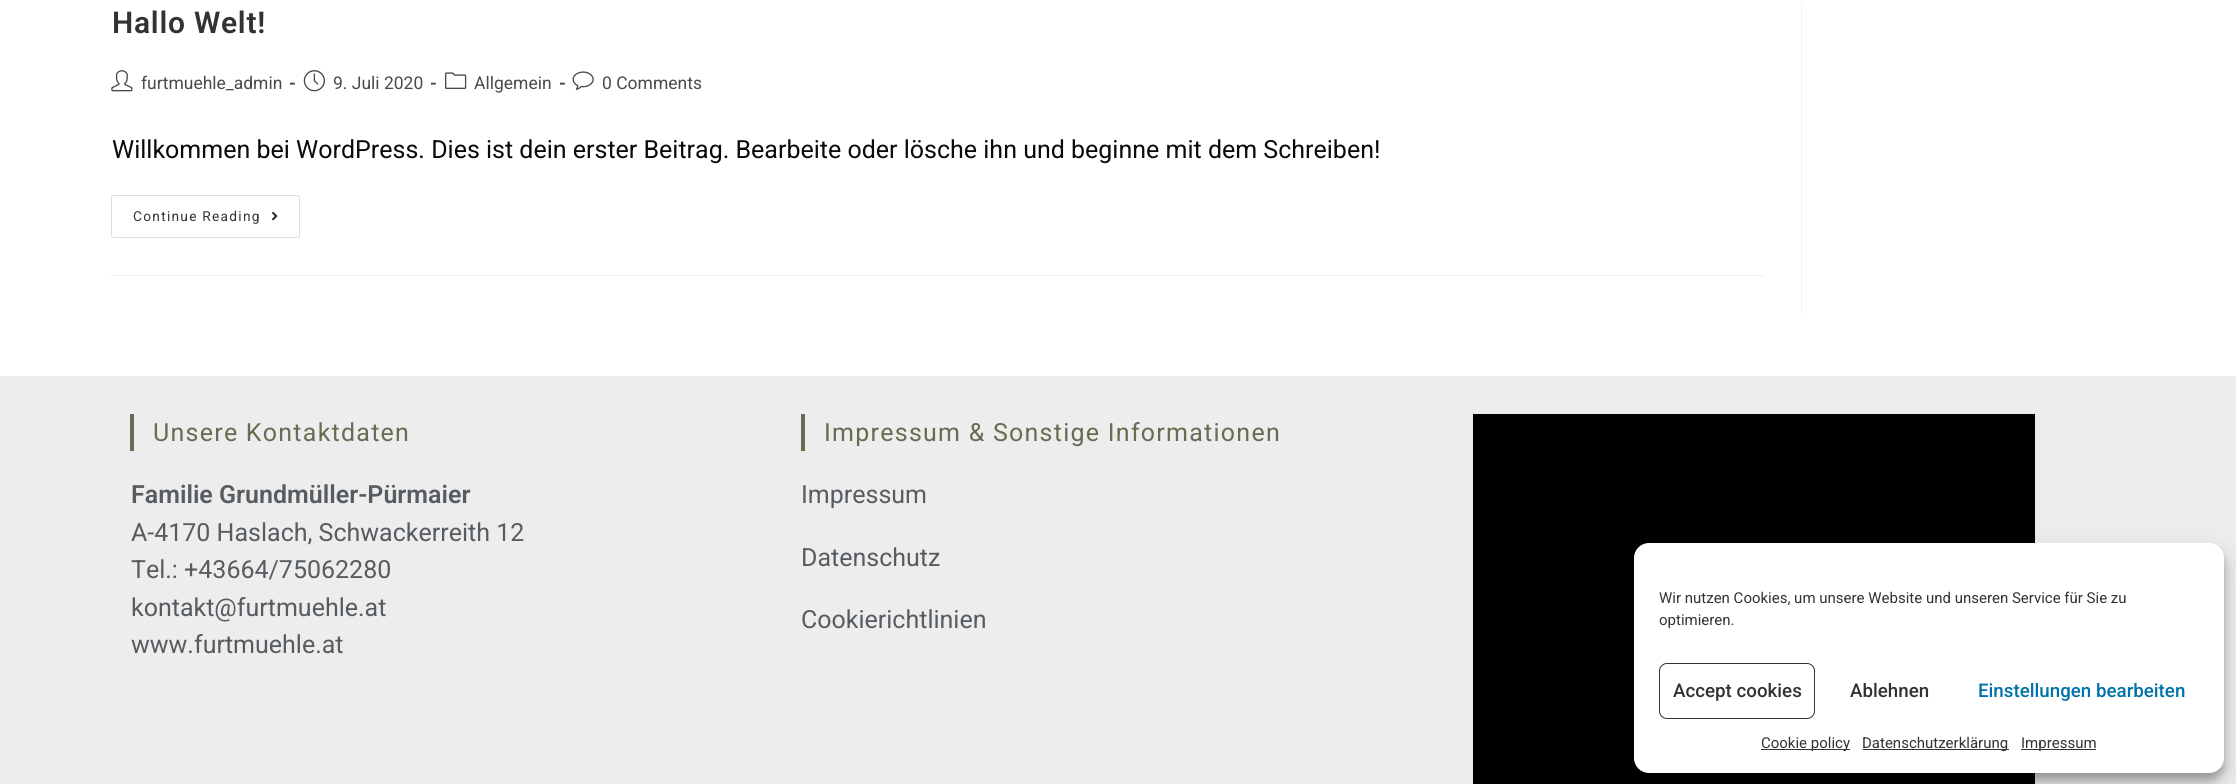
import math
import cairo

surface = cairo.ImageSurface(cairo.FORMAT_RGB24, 2236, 784)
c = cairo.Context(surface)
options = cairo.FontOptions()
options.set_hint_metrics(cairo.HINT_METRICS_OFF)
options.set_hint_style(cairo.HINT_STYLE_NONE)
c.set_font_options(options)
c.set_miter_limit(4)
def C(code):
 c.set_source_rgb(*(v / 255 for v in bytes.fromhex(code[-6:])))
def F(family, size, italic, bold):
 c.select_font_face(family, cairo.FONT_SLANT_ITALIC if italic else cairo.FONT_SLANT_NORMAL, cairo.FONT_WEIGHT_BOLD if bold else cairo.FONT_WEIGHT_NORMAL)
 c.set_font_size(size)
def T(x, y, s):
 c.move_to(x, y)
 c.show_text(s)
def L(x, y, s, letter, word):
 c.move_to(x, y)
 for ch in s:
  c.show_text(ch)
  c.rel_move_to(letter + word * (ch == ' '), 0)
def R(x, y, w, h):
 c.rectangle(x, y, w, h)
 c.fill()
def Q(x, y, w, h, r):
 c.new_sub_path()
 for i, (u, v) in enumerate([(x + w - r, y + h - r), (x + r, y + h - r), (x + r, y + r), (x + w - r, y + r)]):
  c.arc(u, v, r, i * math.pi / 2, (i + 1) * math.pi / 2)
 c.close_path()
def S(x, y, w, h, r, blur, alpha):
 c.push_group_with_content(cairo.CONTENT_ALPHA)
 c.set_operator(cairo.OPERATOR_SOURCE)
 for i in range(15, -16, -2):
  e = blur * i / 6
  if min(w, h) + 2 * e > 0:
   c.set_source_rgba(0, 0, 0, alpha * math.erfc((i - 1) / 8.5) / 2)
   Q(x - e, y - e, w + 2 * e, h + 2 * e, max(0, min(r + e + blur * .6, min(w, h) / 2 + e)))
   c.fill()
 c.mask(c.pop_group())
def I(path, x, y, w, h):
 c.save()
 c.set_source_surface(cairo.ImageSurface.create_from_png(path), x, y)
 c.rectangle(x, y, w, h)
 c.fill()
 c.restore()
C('ffffff')
c.paint()
C('f1f1f1')
R(1801,3,1,311)
R(111,275,1653,1)
F('Roboto SemiBold',30,0,0)
C('333333')
L(112,33,'Hallo Welt!',.75,0)
I('1.png',111,70,22,22)
F('Roboto',17.5,0,0)
C('4a4a4a')
T(141,89,'furtmuehle_admin')
F('Roboto',17.5,0,1)
T(289,89,'-')
I('2.png',303,70,22,22)
F('Roboto',17.5,0,0)
T(333,89,'9. Juli 2020')
F('Roboto',17.5,0,1)
T(430,89,'-')
I('3.png',445,72,22,17)
F('Roboto',17.5,0,0)
T(474,89,'Allgemein')
F('Roboto',17.5,0,1)
T(559,89,'-')
I('4.png',572,71,22,19)
F('Roboto',17.5,0,0)
T(602,89,'0 Comments')
F('Roboto',25,0,0)
C('0a0a0a')
T(112,158,'Willkommen bei WordPress. Dies ist dein erster Beitrag. Bearbeite oder lösche ihn und beginne mit dem Schreiben!')
Q(111.5,195.5,188,42,2)
C('dddddd')
c.set_line_width(1)
c.stroke()
F('Roboto',13.75,0,0)
C('333333')
L(133,221,'Continue Reading',1.25,0)
I('5.png',272,211,6,10)
C('ededed')
R(0,376,2236,408)
C('686c51')
R(130,414,4,37)
F('Roboto',25,0,0)
L(153,441,'Unsere Kontaktdaten',1.25,0)
F('Roboto SemiBold',25,0,0)
C('575c61')
T(131,503,'Familie Grundmüller-Pürmaier')
F('Roboto',25,0,0)
T(131,541,'A-4170 Haslach, Schwackerreith 12')
T(131,578,'Tel.: +43664/75062280')
T(131,616,'kontakt@furtmuehle.at')
T(131,653,'www.furtmuehle.at')
C('686c51')
R(801,414,4,37)
L(824,441,'Impressum & Sonstige Informationen',1.25,0)
C('575c61')
T(801,503,'Impressum')
T(801,566,'Datenschutz')
T(801,628,'Cookierichtlinien')
C('000000')
R(1473,414,562,370)
C('000000')
S(1634,550,590,230,15,4,.23)
S(1634,555,590,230,15,12.5,.19)
C('ffffff')
Q(1634,543,590,230,15)
c.fill()
F('Roboto',15,0,0)
C('333333')
T(1659,603,'Wir nutzen Cookies, um unsere Website und unseren Service für Sie zu')
T(1659,625,'optimieren.')
Q(1659.5,663.5,155,55,7.5)
c.stroke()
F('Roboto Medium',18.75,0,0)
T(1673,697,'Accept cookies')
T(1850,697,'Ablehnen')
C('0073aa')
T(1978,697,'Einstellungen bearbeiten')
C('333333')
R(1761,749,89,1)
F('Roboto',15,0,0)
T(1761,748,'Cookie policy')
R(1863,749,146,1)
T(1862,748,'Datenschutzerklärung')
R(2021,749,75,1)
T(2021,748,'Impressum')
surface.write_to_png('o.png')
